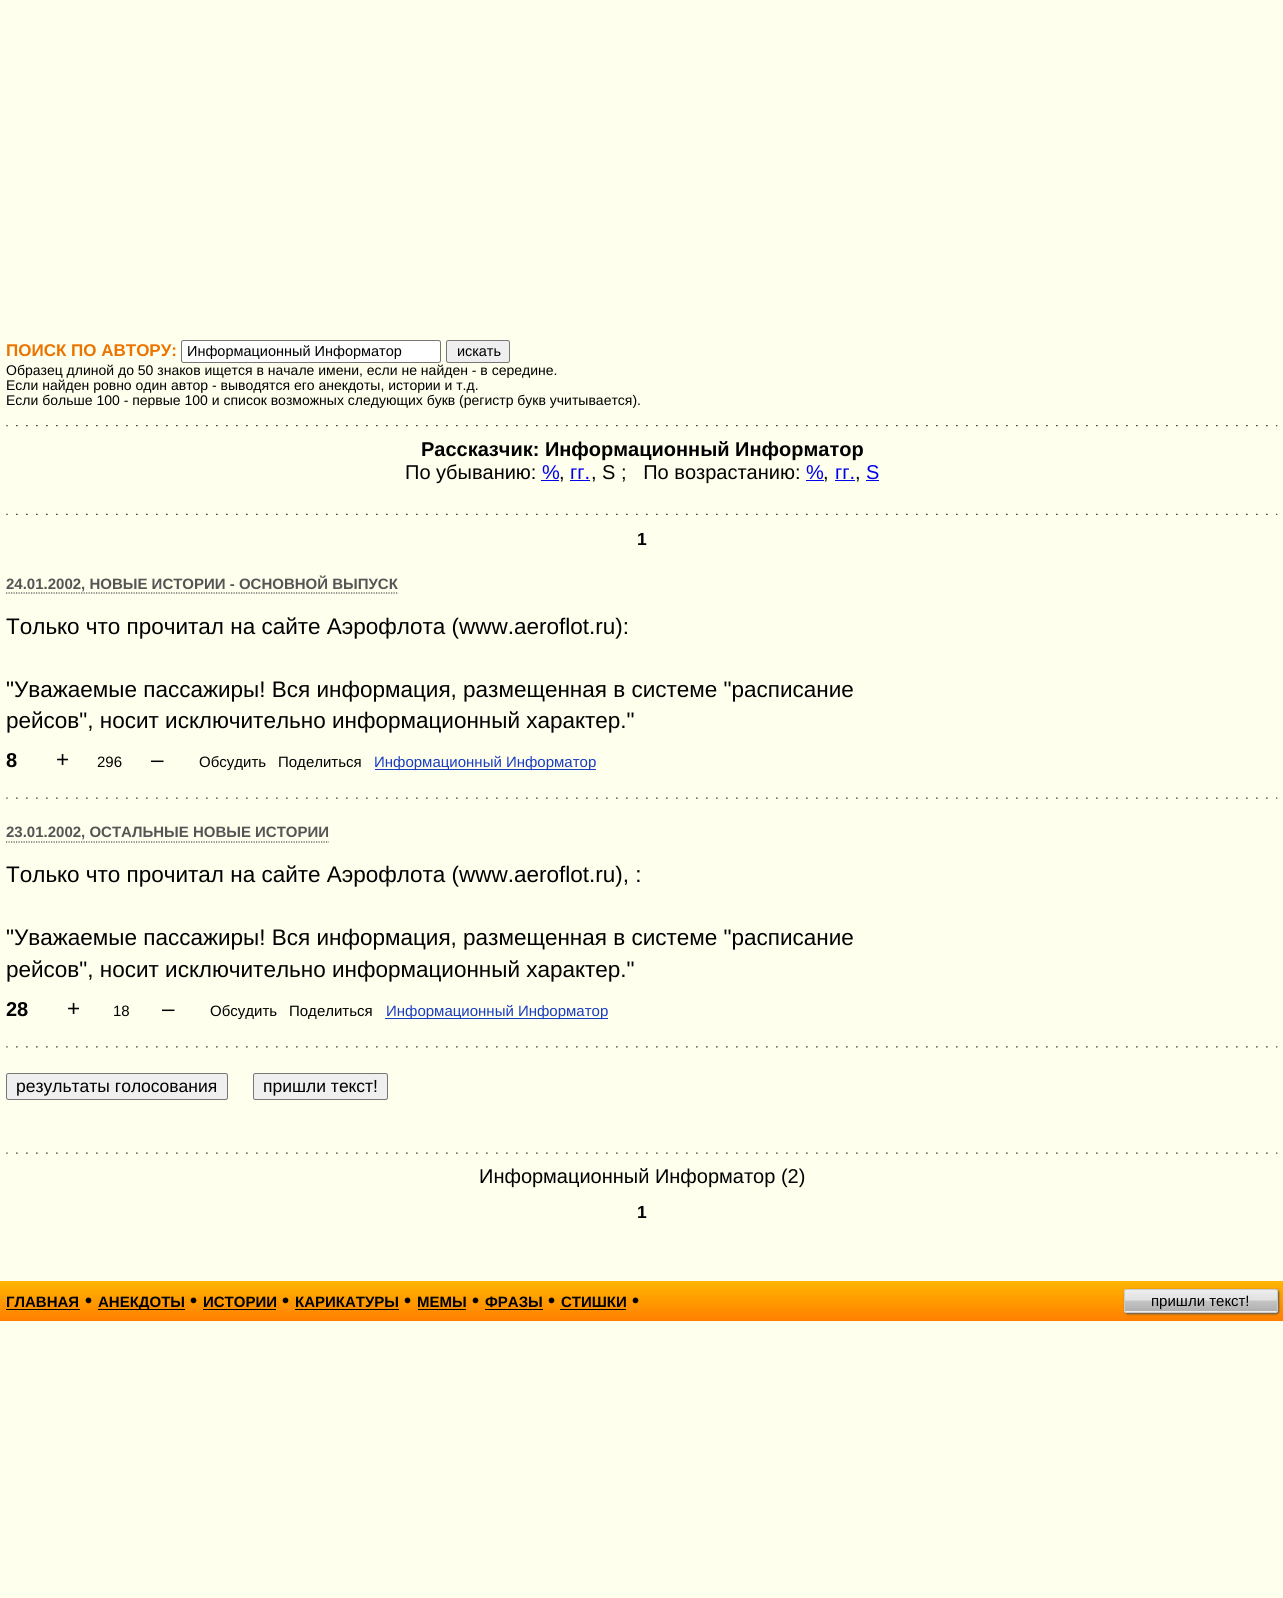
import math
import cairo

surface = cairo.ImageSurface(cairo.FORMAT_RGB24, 1283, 1598)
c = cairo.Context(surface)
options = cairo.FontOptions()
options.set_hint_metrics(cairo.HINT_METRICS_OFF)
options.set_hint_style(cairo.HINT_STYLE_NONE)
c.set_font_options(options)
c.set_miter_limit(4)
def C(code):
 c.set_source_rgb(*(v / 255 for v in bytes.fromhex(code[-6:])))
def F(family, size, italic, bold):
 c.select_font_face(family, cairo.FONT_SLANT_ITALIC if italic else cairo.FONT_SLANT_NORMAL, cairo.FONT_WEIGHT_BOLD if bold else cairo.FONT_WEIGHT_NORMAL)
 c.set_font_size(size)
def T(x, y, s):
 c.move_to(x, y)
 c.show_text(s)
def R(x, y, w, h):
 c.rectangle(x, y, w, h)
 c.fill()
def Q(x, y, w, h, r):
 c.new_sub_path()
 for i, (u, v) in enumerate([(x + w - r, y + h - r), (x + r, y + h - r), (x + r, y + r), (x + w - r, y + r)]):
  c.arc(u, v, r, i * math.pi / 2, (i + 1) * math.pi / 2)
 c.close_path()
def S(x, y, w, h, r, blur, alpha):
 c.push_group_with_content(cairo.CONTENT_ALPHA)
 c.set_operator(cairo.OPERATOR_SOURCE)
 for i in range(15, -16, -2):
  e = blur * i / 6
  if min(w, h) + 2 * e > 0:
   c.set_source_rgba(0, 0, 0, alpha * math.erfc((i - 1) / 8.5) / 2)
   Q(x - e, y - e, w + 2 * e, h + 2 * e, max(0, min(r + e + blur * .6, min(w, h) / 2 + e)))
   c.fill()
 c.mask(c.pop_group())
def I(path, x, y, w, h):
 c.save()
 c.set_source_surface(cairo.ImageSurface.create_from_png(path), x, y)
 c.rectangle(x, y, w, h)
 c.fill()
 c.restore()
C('ffffee')
c.paint()
I('1.png',6,425,1272,2)
F('Liberation Sans',17,0,1)
C('eb7400')
T(6,356,'ПОИСК ПО АВТОРУ:')
C('ffffff')
Q(181.5,340.5,259,22,2)
c.fill_preserve()
C('767676')
c.set_line_width(1)
c.stroke()
F('Liberation Sans',14.5,0,0)
C('000000')
T(187,356,'Информационный Информатор')
C('efefef')
Q(446.5,340.5,63,22,2)
c.fill_preserve()
C('767676')
c.stroke()
C('000000')
T(457,356,'искать')
F('Liberation Sans',14,0,0)
T(6,375,'Образец длиной до 50 знаков ищется в начале имени, если не найден - в середине.')
T(6,390,'Если найден ровно один автор - выводятся его анекдоты, истории и т.д.')
T(6,405,'Если больше 100 - первые 100 и список возможных следующих букв (регистр букв учитывается).')
F('Liberation Sans',20,0,1)
T(421,456,'Рассказчик: Информационный Информатор')
F('Liberation Sans',20,0,0)
T(405,479,'По убыванию:')
C('0000ee')
T(542,479,'%')
R(541,480,18,1)
C('000000')
T(559,479,',')
C('0000ee')
T(570,479,'гг.')
R(570,480,20,1)
C('000000')
T(591,479,', S ;   По возрастанию:')
C('0000ee')
T(806,479,'%')
R(806,480,18,1)
C('000000')
T(823,479,',')
C('0000ee')
T(835,479,'гг.')
R(835,480,20,1)
C('000000')
T(855,479,',')
C('0000ee')
T(866,479,'S')
R(866,480,13,1)
I('2.png',6,513,1272,2)
F('Liberation Sans',17.5,0,1)
C('000000')
T(637,545,'1')
I('3.png',6,797,1272,2)
F('Liberation Sans',15,0,1)
C('555555')
T(6,589,'24.01.2002, НОВЫЕ ИСТОРИИ - ОСНОВНОЙ ВЫПУСК')
c.new_path()
c.move_to(6,593)
c.line_to(397.5,593)
c.set_line_width(1.2)
c.set_dash([1.25,1.25])
c.stroke()
F('Liberation Sans',22.5,0,0)
C('000000')
T(6,634,'Только что прочитал на сайте Аэрофлота (www.aeroflot.ru):')
T(6,697,'"Уважаемые пассажиры! Вся информация, размещенная в системе "расписание')
T(6,728,'рейсов", носит исключительно информационный характер."')
F('Liberation Sans',20,0,1)
T(6,767,'8')
F('Liberation Sans',22.5,0,0)
T(56,767,'+')
F('Liberation Sans',15,0,0)
T(97,767,'296')
F('Liberation Sans',22.5,0,0)
T(151,767,'–')
F('Liberation Sans',15,0,0)
T(199,767,'Обсудить')
T(278,767,'Поделиться')
C('1a3dc1')
R(375,769,221,1)
T(374,767,'Информационный Информатор')
I('4.png',6,1046,1272,2)
F('Liberation Sans',15,0,1)
C('555555')
T(6,837,'23.01.2002, ОСТАЛЬНЫЕ НОВЫЕ ИСТОРИИ')
c.new_path()
c.move_to(6,842)
c.line_to(329,842)
c.stroke()
F('Liberation Sans',22.5,0,0)
C('000000')
T(6,882,'Только что прочитал на сайте Аэрофлота (www.aeroflot.ru), :')
T(6,945,'"Уважаемые пассажиры! Вся информация, размещенная в системе "расписание')
T(6,977,'рейсов", носит исключительно информационный характер."')
F('Liberation Sans',20,0,1)
T(6,1016,'28')
F('Liberation Sans',22.5,0,0)
T(67,1016,'+')
F('Liberation Sans',15,0,0)
T(113,1016,'18')
F('Liberation Sans',22.5,0,0)
T(162,1016,'–')
F('Liberation Sans',15,0,0)
T(210,1016,'Обсудить')
T(289,1016,'Поделиться')
C('1a3dc1')
R(385,1018,223,1)
T(386,1016,'Информационный Информатор')
C('efefef')
Q(6.5,1073.5,221,26,2)
c.fill_preserve()
C('767676')
c.set_line_width(1)
c.set_dash([])
c.stroke()
F('Liberation Sans',17.5,0,0)
C('000000')
T(16,1092,'результаты голосования')
C('efefef')
Q(253.5,1073.5,134,26,2)
c.fill_preserve()
C('767676')
c.stroke()
C('000000')
T(263,1092,'пришли текст!')
I('3.png',6,1152,1272,2)
F('Liberation Sans',20,0,0)
T(479,1183,'Информационный Информатор (2)')
F('Liberation Sans',17.5,0,1)
T(637,1218,'1')
gradient = cairo.LinearGradient(642,1281,642,1321)
gradient.add_color_stop_rgba(0,1,0.71,0,1)
gradient.add_color_stop_rgba(1,1,0.498,0,1)
c.set_source(gradient)
R(0,1281,1283,40)
F('Liberation Sans',15,0,1)
C('000000')
T(6,1307,'ГЛАВНАЯ')
R(6,1309,74,1)
F('Liberation Sans',20,0,1)
T(85,1307,'•')
R(98,1309,87,1)
F('Liberation Sans',15,0,1)
T(98,1307,'АНЕКДОТЫ')
F('Liberation Sans',20,0,1)
T(190,1307,'•')
F('Liberation Sans',15,0,1)
T(203,1307,'ИСТОРИИ')
R(203,1309,73,1)
F('Liberation Sans',20,0,1)
T(282,1307,'•')
F('Liberation Sans',15,0,1)
T(295,1307,'КАРИКАТУРЫ')
R(295,1309,104,1)
F('Liberation Sans',20,0,1)
T(404,1307,'•')
F('Liberation Sans',15,0,1)
T(417,1307,'МЕМЫ')
R(418,1309,48,1)
F('Liberation Sans',20,0,1)
T(472,1307,'•')
F('Liberation Sans',15,0,1)
T(485,1307,'ФРАЗЫ')
R(485,1309,58,1)
F('Liberation Sans',20,0,1)
T(548,1307,'•')
F('Liberation Sans',15,0,1)
T(561,1307,'СТИШКИ')
R(560,1309,66,1)
F('Liberation Sans',20,0,1)
T(632,1307,'•')
C('555555')
S(1125,1290,154,24,2.5,1,1)
gradient = cairo.LinearGradient(1201,1290,1201,1311)
gradient.add_color_stop_rgba(0,0.933,0.933,0.933,1)
gradient.add_color_stop_rgba(.49,0.882,0.882,0.882,1)
gradient.add_color_stop_rgba(.51,0.769,0.769,0.769,1)
gradient.add_color_stop_rgba(1,0.69,0.69,0.69,1)
c.set_source(gradient)
R(1124,1290,154,21)
c.save()
Q(1124,1289,154,24,2.5)
c.clip()
gradient = cairo.LinearGradient(1201,1311,1201,1333)
gradient.add_color_stop_rgba(0,0.933,0.933,0.933,1)
gradient.add_color_stop_rgba(.49,0.882,0.882,0.882,1)
gradient.add_color_stop_rgba(.51,0.769,0.769,0.769,1)
gradient.add_color_stop_rgba(1,0.69,0.69,0.69,1)
c.set_source(gradient)
R(1124,1311,154,2)
c.restore()
Q(1124.5,1289.5,153,23,2)
C('cccccc')
c.stroke()
F('Liberation Sans',15,0,0)
C('000000')
T(1151,1306,'пришли текст!')
surface.write_to_png('o.png')
